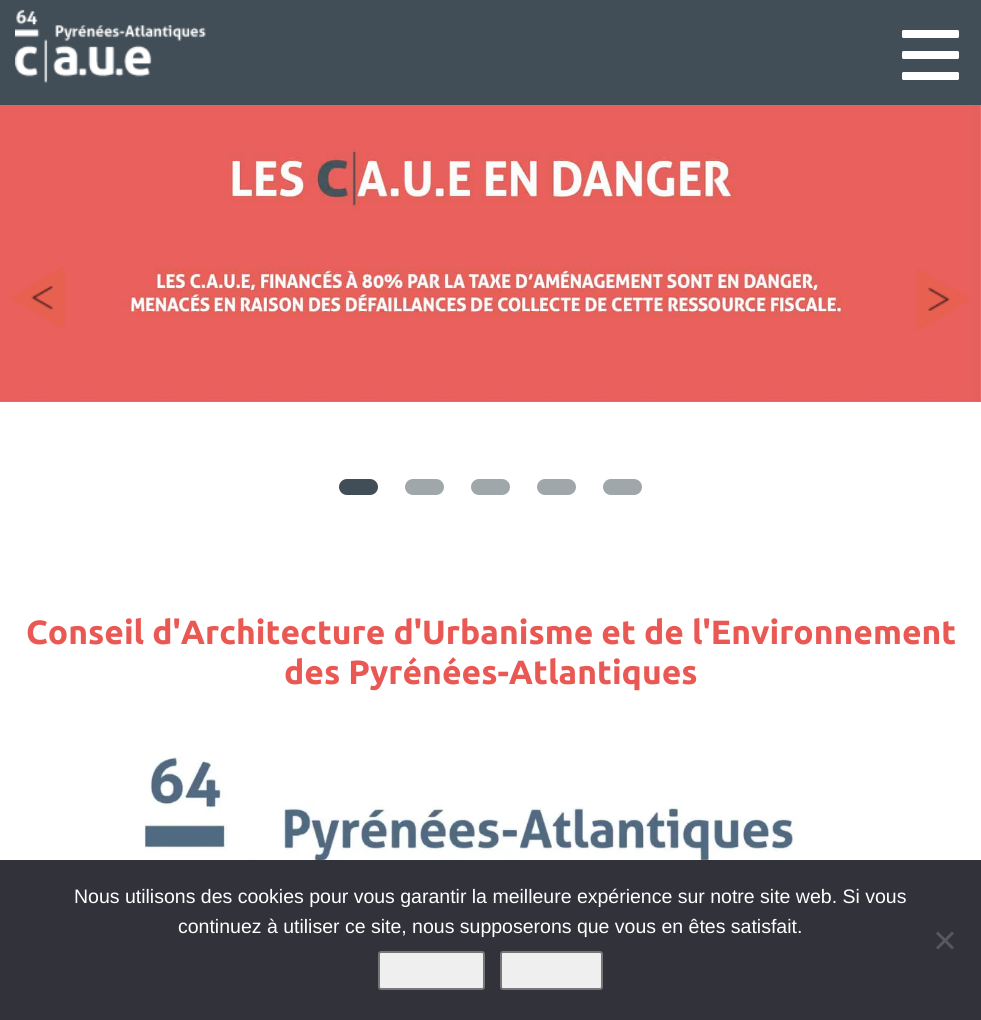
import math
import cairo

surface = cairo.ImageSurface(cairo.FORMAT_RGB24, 981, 1020)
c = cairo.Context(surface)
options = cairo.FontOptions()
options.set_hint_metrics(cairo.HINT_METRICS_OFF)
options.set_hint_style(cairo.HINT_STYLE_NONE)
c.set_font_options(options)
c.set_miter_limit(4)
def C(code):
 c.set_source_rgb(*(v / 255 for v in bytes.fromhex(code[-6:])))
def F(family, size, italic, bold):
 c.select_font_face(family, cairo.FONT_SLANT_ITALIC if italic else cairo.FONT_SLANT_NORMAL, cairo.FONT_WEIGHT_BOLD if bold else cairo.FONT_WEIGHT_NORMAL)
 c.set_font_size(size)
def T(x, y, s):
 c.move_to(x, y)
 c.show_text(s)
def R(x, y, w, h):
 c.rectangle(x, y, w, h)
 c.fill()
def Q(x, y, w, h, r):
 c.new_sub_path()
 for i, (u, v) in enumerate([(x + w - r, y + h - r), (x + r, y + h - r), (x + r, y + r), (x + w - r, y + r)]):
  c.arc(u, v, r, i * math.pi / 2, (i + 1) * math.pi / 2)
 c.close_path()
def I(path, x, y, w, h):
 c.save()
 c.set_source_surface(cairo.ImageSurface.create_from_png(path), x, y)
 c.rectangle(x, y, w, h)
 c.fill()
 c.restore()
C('ffffff')
c.paint()
C('414e57')
R(0,0,981,105)
I('1.png',15,9,191,74)
C('ffffff')
Q(902,30,57,8,1.5)
c.fill()
Q(902,51,57,8,1.5)
c.fill()
Q(902,72,57,8,1.5)
c.fill()
I('2.png',0,105,981,297)
I('3.png',10,267,55,62)
I('4.png',916,268,55,62)
C('414e57')
Q(337.5,477.5,42,19,9.5)
c.fill_preserve()
C('ffffff')
c.set_line_width(3)
c.stroke()
C('a0a7ab')
Q(403.5,477.5,42,19,9.5)
c.fill_preserve()
C('ffffff')
c.stroke()
C('a0a7ab')
Q(469.5,477.5,42,19,9.5)
c.fill_preserve()
C('ffffff')
c.stroke()
C('a0a7ab')
Q(535.5,477.5,42,19,9.5)
c.fill_preserve()
C('ffffff')
c.stroke()
C('a0a7ab')
Q(601.5,477.5,42,19,9.5)
c.fill_preserve()
C('ffffff')
c.stroke()
F('Ubuntu',33.6,0,1)
C('ea5854')
T(26,644,'Conseil d\'Architecture d\'Urbanisme et de l\'Environnement')
T(284,684,'des Pyrénées-Atlantiques')
I('5.png',144,757,685,103)
C('32323a')
R(0,860,981,160)
F('Liberation Sans',19.5,0,0)
C('ffffff')
T(74,903,'Nous utilisons des cookies pour vous garantir la meilleure expérience sur notre site web. Si vous')
T(178,933,'continuez à utiliser ce site, nous supposerons que vous en êtes satisfait.')
C('59595d')
c.new_path()
c.move_to(952,931.5)
c.line_to(954,933.5)
c.line_to(938,949.5)
c.line_to(936,947.5)
c.close_path()
c.fill()
c.new_path()
c.move_to(936,933.5)
c.line_to(938,931.5)
c.line_to(954,947.5)
c.line_to(952,949.5)
c.close_path()
c.fill()
C('efefef')
Q(379,952,105,37,2)
c.fill_preserve()
C('767676')
c.set_line_width(2)
c.stroke()
C('efefef')
Q(501,952,101,37,2)
c.fill_preserve()
C('767676')
c.stroke()
surface.write_to_png('o.png')
